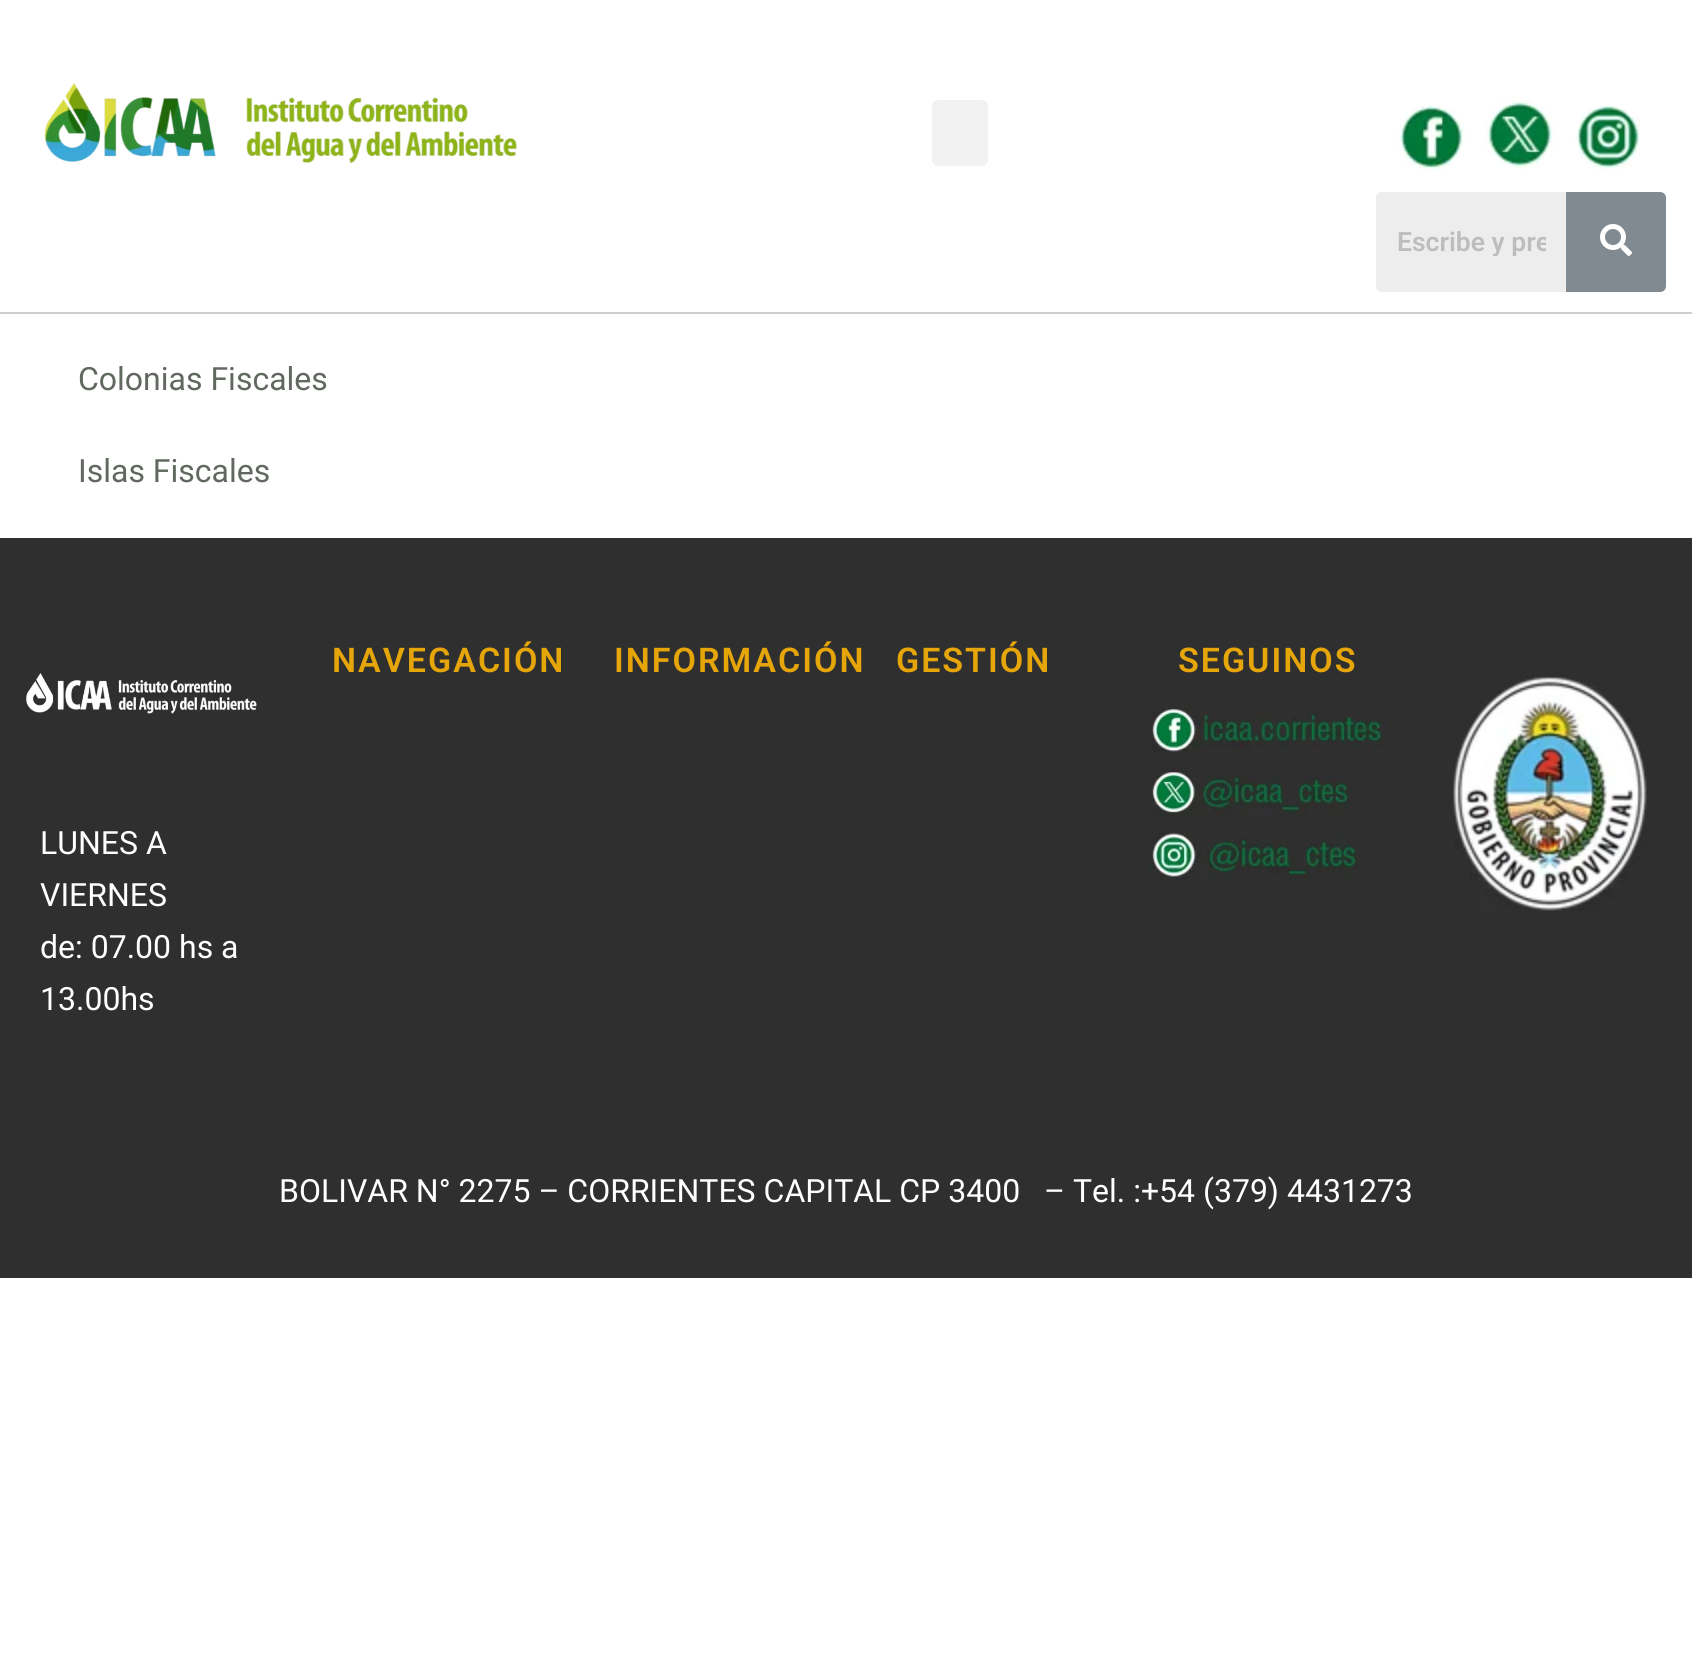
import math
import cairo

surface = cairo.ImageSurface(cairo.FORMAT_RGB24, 1692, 1675)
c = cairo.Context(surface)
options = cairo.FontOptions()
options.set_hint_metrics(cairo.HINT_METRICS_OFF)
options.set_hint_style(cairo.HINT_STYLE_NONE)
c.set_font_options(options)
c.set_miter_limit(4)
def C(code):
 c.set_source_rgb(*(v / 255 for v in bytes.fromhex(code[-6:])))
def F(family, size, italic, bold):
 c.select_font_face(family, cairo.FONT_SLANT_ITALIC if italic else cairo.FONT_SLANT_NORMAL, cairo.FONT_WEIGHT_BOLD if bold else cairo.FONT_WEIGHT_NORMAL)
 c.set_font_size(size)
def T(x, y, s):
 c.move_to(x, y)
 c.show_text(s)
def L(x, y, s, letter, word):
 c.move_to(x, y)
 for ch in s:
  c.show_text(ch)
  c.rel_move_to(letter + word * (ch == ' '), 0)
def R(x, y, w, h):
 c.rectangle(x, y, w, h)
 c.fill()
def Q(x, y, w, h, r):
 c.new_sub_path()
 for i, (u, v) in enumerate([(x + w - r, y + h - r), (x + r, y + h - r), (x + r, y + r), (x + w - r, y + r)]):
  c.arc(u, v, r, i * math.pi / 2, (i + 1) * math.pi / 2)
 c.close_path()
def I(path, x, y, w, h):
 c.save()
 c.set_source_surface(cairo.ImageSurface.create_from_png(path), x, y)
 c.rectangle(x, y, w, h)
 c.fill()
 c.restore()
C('ffffff')
c.paint()
C('cecece')
R(0,312,1692,2)
I('1.png',44,83,473,81)
C('f2f2f2')
Q(932,100,56,66,6)
c.fill()
I('2.png',1399,104,67,68)
I('3.png',1485,99,70,71)
I('4.png',1575,105,66,67)
C('ededed')
c.new_path()
c.move_to(1382,192)
c.line_to(1566,192)
c.line_to(1566,292)
c.line_to(1382,292)
c.curve_to(1378.5,292,1376,289.5,1376,286)
c.line_to(1376,198)
c.curve_to(1376,194.5,1378.5,192,1382,192)
c.close_path()
c.fill()
c.save()
c.rectangle(1396,226,150,30)
c.clip()
F('Roboto SemiBold',26.5,0,0)
C('bdbdbd')
T(1397,251,'Escribe y pre')
c.restore()
C('818a91')
c.new_path()
c.move_to(1566,192)
c.line_to(1660,192)
c.curve_to(1663.5,192,1666,194.5,1666,198)
c.line_to(1666,286)
c.curve_to(1666,289.5,1663.5,292,1660,292)
c.line_to(1566,292)
c.close_path()
c.fill()
I('5.png',1600,224,32,32)
F('Roboto',32,0,0)
C('616860')
T(78,390,'Colonias Fiscales')
T(78,482,'Islas Fiscales')
C('2f2f2f')
R(0,538,1692,740)
F('Roboto SemiBold',34,0,0)
C('e6a508')
L(332,672,'NAVEGACIÓN',2,0)
L(614,672,'INFORMACIÓN',2,0)
L(896,672,'GESTIÓN',2,0)
L(1178,672,'SEGUINOS',2,0)
I('6.png',1148,708,238,45)
I('7.png',1152,768,197,48)
I('8.png',1148,833,210,46)
I('9.png',26,673,231,41)
F('Roboto',32,0,0)
C('ffffff')
T(40,854,'LUNES A')
T(40,906,'VIERNES')
T(40,958,'de: 07.00 hs a')
T(40,1010,'13.00hs')
I('10.png',1453,675,194,236)
T(279,1202,'BOLIVAR N° 2275 – CORRIENTES CAPITAL CP 3400   – Tel. :+54 (379) 4431273')
surface.write_to_png('o.png')
